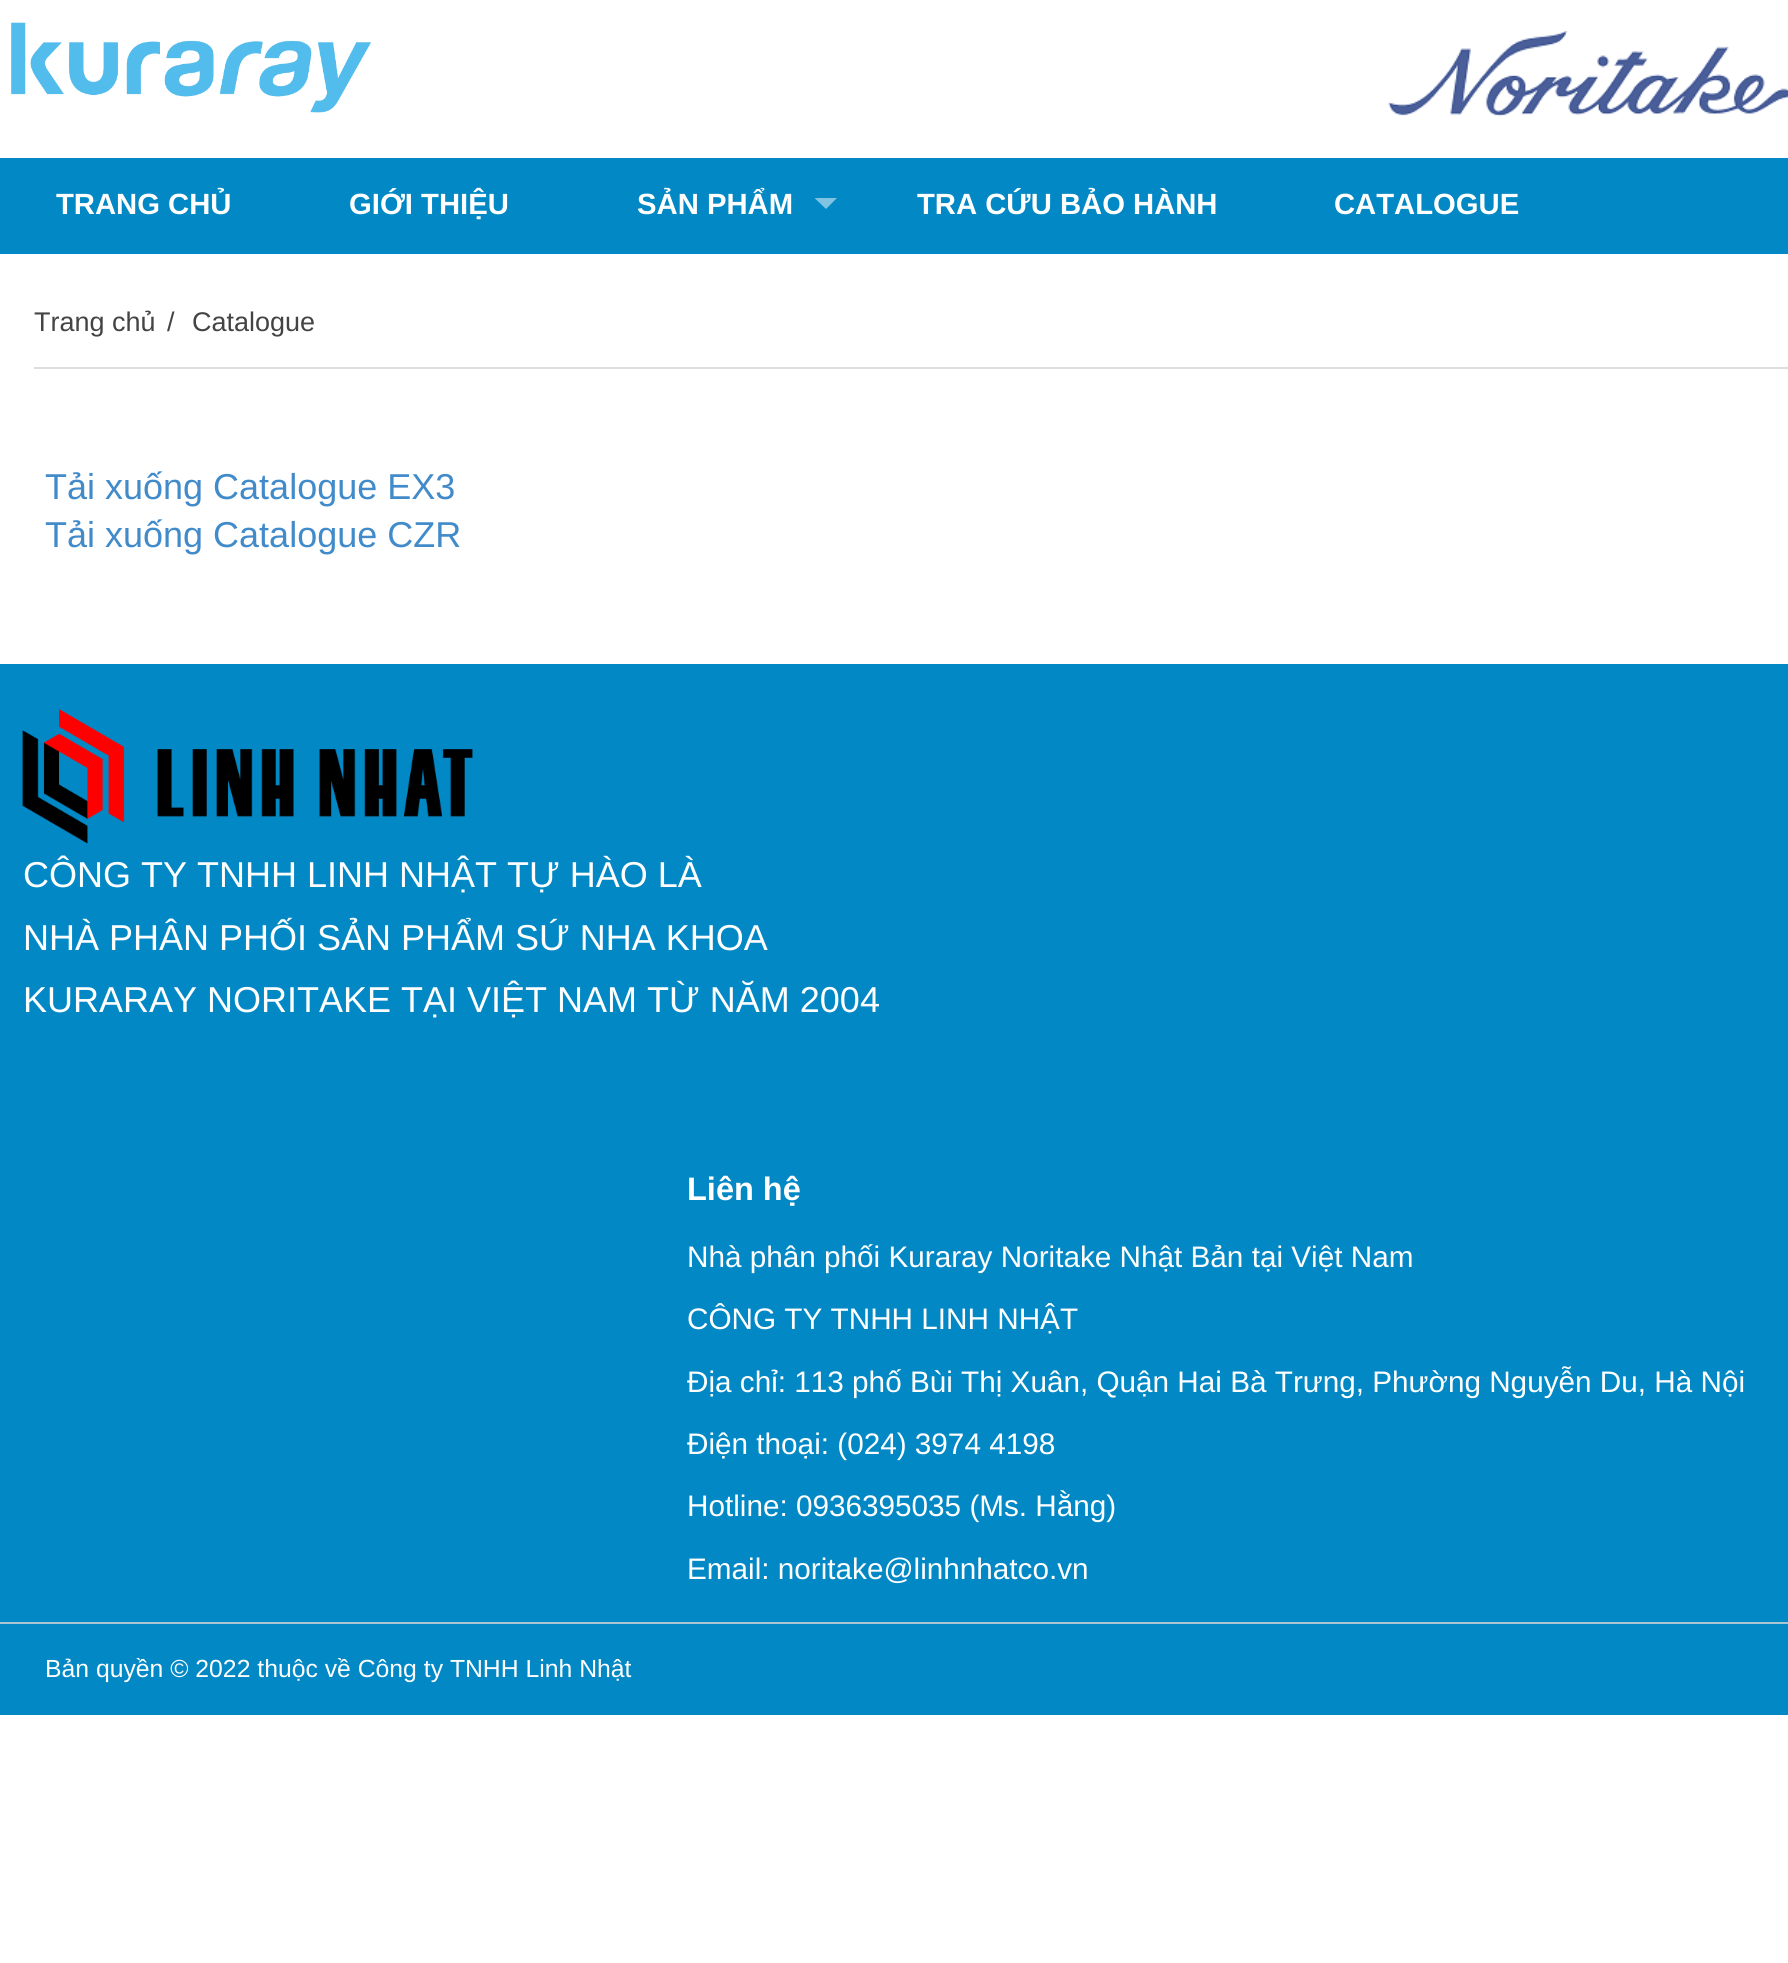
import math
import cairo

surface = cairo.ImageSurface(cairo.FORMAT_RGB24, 1788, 1963)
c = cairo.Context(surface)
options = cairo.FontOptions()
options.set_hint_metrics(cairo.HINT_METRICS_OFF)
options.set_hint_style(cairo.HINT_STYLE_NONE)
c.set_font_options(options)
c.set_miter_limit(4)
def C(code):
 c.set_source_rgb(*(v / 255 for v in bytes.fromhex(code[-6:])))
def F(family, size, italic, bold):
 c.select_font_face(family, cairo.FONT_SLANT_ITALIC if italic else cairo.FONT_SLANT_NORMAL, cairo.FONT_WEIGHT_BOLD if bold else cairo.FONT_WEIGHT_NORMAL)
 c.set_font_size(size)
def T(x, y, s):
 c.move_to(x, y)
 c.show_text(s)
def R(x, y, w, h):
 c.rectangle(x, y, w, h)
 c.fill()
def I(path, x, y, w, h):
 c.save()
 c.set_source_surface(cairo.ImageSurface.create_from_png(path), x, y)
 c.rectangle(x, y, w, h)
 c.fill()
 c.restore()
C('ffffff')
c.paint()
I('1.png',11,22,361,91)
I('2.png',1388,31,400,86)
C('0188c5')
R(0,158,1788,96)
F('Liberation Sans',29.25,0,1)
C('ffffff')
T(56,214,'TRANG CHỦ')
T(349,214,'GIỚI THIỆU')
T(637,214,'SẢN PHẨM')
C('80c4e2')
c.new_path()
c.move_to(814.5,198)
c.line_to(837,198)
c.line_to(826,209)
c.close_path()
c.fill()
C('ffffff')
T(917,214,'TRA CỨU BẢO HÀNH')
T(1334,214,'CATALOGUE')
C('dedede')
R(34,367,1754,2)
F('Liberation Sans',27,0,0)
C('444444')
T(34,331,'Trang chủ')
T(167,331,'/')
T(192,331,'Catalogue')
F('Liberation Sans',36,0,0)
C('428bca')
T(45,499,'Tải xuống Catalogue EX3')
T(45,547,'Tải xuống Catalogue CZR')
C('0188c5')
R(0,664,1788,1051)
I('3.png',22,708,451,136)
C('ffffff')
T(23,887,'CÔNG TY TNHH LINH NHẬT TỰ HÀO LÀ')
T(23,950,'NHÀ PHÂN PHỐI SẢN PHẨM SỨ NHA KHOA')
T(23,1012,'KURARAY NORITAKE TẠI VIỆT NAM TỪ NĂM 2004')
F('Liberation Sans',32.5,0,1)
T(687,1200,'Liên hệ')
F('Liberation Sans',29.7,0,0)
T(687,1267,'Nhà phân phối Kuraray Noritake Nhật Bản tại Việt Nam')
T(687,1329,'CÔNG TY TNHH LINH NHẬT')
T(687,1392,'Địa chỉ: 113 phố Bùi Thị Xuân, Quận Hai Bà Trưng, Phường Nguyễn Du, Hà Nội')
T(687,1454,'Điện thoại: (024) 3974 4198')
T(687,1516,'Hotline: 0936395035 (Ms. Hằng)')
T(687,1579,'Email: noritake@linhnhatco.vn')
C('a8c5d2')
R(0,1622,1788,2)
F('Liberation Sans',24.75,0,0)
C('ffffff')
T(45,1677,'Bản quyền © 2022 thuộc về Công ty TNHH Linh Nhật')
surface.write_to_png('o.png')
